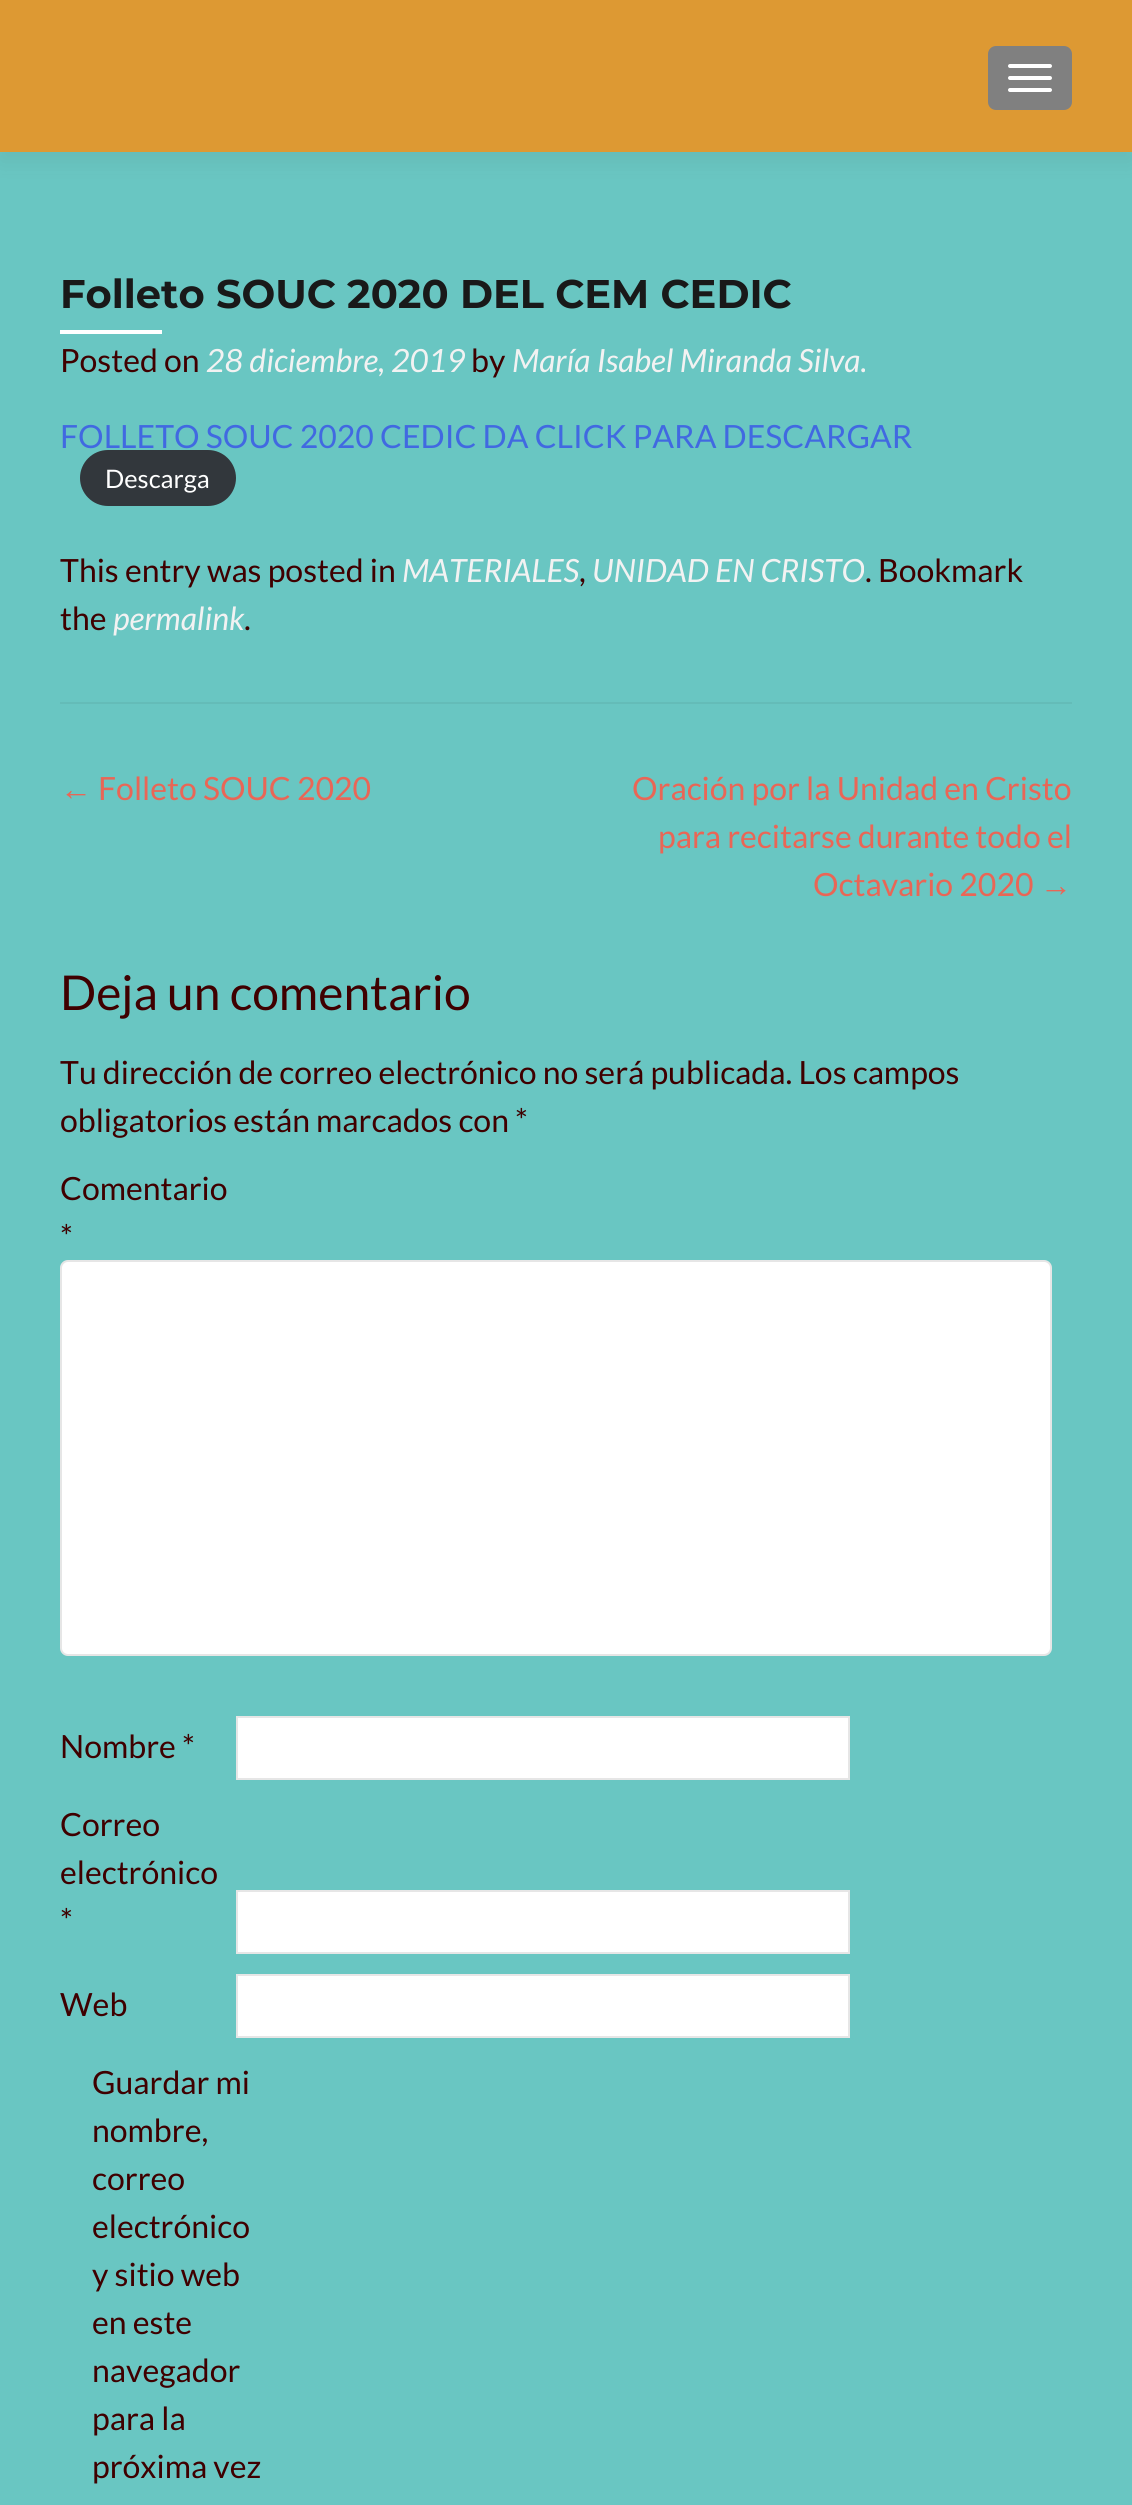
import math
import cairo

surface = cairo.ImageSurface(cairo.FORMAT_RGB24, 1132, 2505)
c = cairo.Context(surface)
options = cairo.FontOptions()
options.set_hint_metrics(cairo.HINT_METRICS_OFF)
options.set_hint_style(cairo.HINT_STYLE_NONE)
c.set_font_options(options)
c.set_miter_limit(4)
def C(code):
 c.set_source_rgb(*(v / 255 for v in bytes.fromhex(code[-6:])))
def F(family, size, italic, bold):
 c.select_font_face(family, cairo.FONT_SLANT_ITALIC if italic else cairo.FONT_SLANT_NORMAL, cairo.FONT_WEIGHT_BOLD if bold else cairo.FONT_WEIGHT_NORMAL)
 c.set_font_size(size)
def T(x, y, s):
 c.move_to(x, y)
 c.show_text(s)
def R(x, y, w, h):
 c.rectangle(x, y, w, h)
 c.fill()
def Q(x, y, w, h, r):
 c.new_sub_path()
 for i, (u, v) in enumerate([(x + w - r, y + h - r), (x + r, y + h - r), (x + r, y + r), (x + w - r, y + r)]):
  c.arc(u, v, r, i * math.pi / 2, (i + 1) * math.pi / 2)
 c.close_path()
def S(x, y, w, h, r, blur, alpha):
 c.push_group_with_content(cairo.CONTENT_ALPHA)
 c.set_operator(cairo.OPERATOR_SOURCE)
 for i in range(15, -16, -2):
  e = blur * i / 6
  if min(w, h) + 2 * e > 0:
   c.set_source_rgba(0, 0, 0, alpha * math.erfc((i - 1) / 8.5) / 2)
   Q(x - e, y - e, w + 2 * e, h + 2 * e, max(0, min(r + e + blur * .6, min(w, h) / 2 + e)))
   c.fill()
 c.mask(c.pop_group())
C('69c6c2')
c.paint()
C('323232')
S(0,10,1132,152,0,11,.08)
C('dd9933')
R(0,0,1132,152)
C('808080')
Q(988,46,84,64,8)
c.fill()
C('ffffff')
Q(1008,64,44,4,2)
c.fill()
Q(1008,76,44,4,2)
c.fill()
Q(1008,88,44,4,2)
c.fill()
C('64bcb8')
R(60,702,1012,2)
F('Montserrat Thin',40,0,0)
C('191919')
T(60,308,'Folleto SOUC 2020 DEL CEM CEDIC')
C('ffffff')
R(60,330,102,4)
F('Lato',32,0,0)
C('3f0000')
T(60,372,'Posted on')
F('Lato',32,1,0)
C('f2f2f2')
T(206,372,'28 diciembre, 2019')
F('Lato',32,0,0)
C('3f0000')
T(471,372,'by')
F('Lato',32,1,0)
C('f2f2f2')
T(512,372,'María Isabel Miranda Silva.')
F('Lato',32,0,0)
C('4169e1')
T(60,448,'FOLLETO SOUC 2020 CEDIC DA CLICK PARA DESCARGAR')
C('32373c')
Q(80,450,156,56,28)
c.fill()
F('Lato',25.5,0,0)
C('ffffff')
T(105,488,'Descarga')
F('Lato',32,0,0)
C('3f0000')
T(60,582,'This entry was posted in')
F('Lato',32,1,0)
C('f2f2f2')
T(402,582,'MATERIALES')
F('Lato',32,0,0)
C('3f0000')
T(579,582,',')
F('Lato',32,1,0)
C('f2f2f2')
T(592,582,'UNIDAD EN CRISTO')
F('Lato',32,0,0)
C('3f0000')
T(865,582,'. Bookmark')
T(60,630,'the')
F('Lato',32,1,0)
C('f2f2f2')
T(113,630,'permalink')
F('Lato',32,0,0)
C('3f0000')
T(244,630,'.')
F('Liberation Sans',32,0,0)
C('e96656')
T(60,800,'←')
F('Lato',32,0,0)
T(98,800,'Folleto SOUC 2020')
T(632,800,'Oración por la Unidad en Cristo')
T(658,848,'para recitarse durante todo el')
T(813,896,'Octavario 2020')
F('Liberation Sans',32,0,0)
T(1040,896,'→')
F('Lato',48,0,0)
C('3f0000')
T(60,1010,'Deja un comentario')
F('Lato',32,0,0)
T(60,1084,'Tu dirección de correo electrónico no será publicada. Los campos')
T(60,1132,'obligatorios están marcados con *')
T(60,1200,'Comentario')
T(60,1248,'*')
C('ffffff')
Q(60,1260,992,396,8)
c.fill()
Q(61,1261,990,394,7)
c.set_source_rgba(0,0,0,0.1)
c.stroke()
C('3f0000')
T(60,1758,'Nombre *')
C('ffffff')
c.rectangle(237,1717,612,62)
c.fill_preserve()
C('e6e6e6')
c.stroke()
C('3f0000')
T(60,1836,'Correo')
T(60,1884,'electrónico')
T(60,1932,'*')
C('ffffff')
c.rectangle(237,1891,612,62)
c.fill_preserve()
C('e6e6e6')
c.stroke()
C('3f0000')
T(60,2016,'Web')
C('ffffff')
c.rectangle(237,1975,612,62)
c.fill_preserve()
C('e6e6e6')
c.stroke()
C('3f0000')
T(92,2094,'Guardar mi')
T(92,2142,'nombre,')
T(92,2190,'correo')
T(92,2238,'electrónico')
T(92,2286,'y sitio web')
T(92,2334,'en este')
T(92,2382,'navegador')
T(92,2430,'para la')
T(92,2478,'próxima vez')
surface.write_to_png('o.png')
